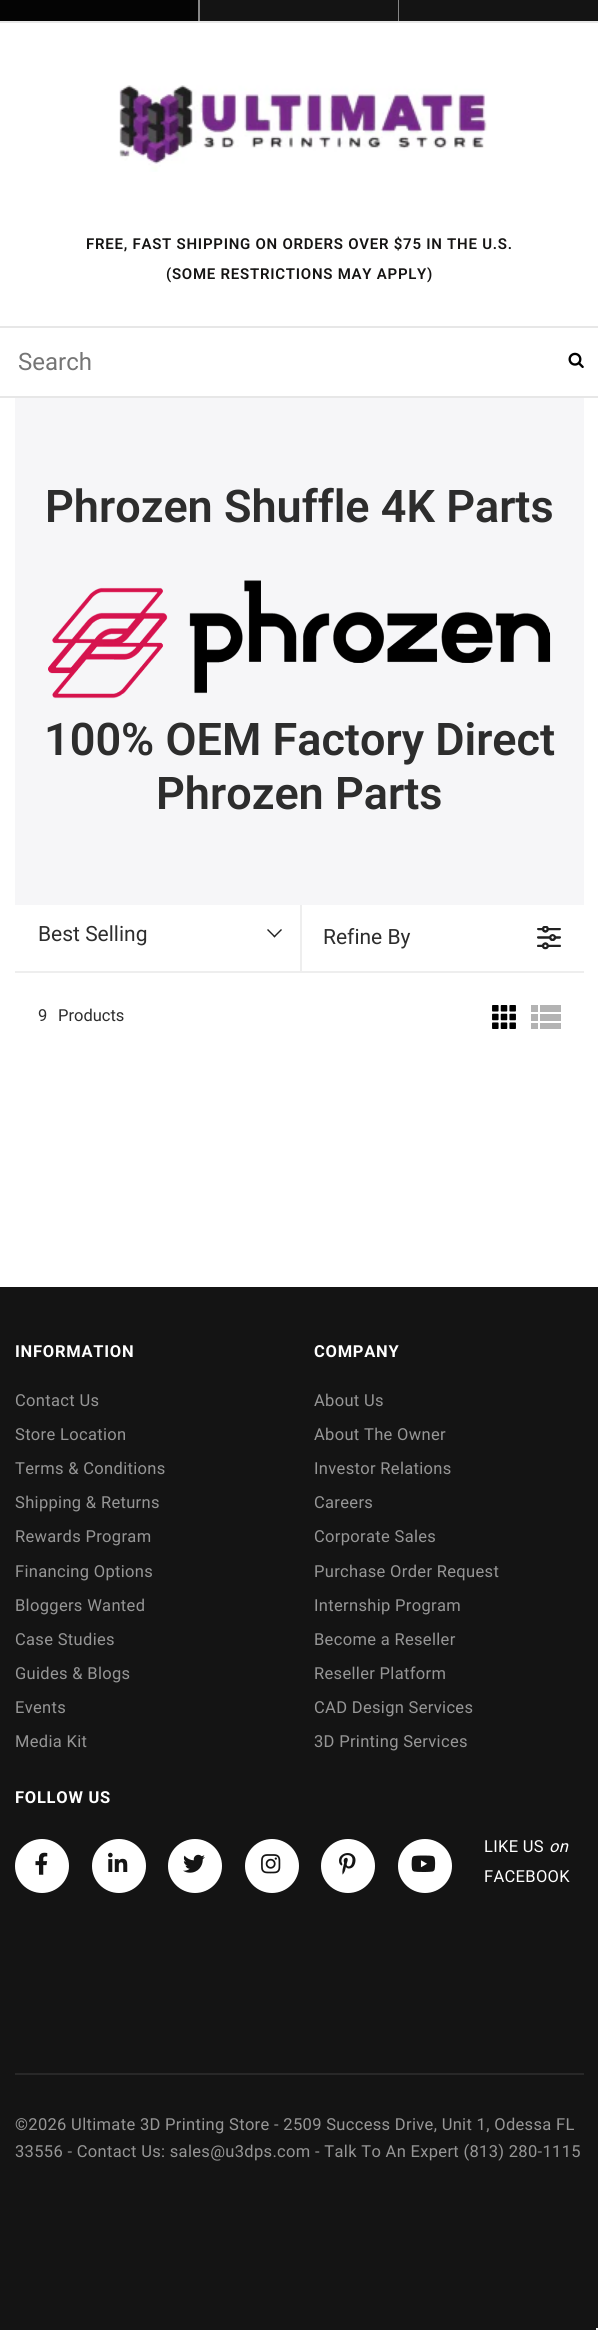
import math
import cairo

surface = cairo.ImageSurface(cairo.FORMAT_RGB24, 598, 2330)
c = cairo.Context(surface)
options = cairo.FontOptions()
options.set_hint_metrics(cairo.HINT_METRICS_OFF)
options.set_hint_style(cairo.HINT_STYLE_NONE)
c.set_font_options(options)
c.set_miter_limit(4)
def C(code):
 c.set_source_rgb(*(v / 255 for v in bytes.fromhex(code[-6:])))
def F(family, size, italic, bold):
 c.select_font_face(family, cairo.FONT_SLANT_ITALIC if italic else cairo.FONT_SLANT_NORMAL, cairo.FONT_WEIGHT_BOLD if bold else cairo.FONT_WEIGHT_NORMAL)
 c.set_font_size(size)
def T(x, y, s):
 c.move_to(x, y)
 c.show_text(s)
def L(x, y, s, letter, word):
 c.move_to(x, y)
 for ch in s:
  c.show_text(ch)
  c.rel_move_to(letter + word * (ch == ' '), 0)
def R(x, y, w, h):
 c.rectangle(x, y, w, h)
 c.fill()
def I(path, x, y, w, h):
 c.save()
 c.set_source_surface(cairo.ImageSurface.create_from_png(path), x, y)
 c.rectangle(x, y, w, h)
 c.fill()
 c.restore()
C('ffffff')
c.paint()
C('141414')
R(200,0,198,21)
C('040404')
R(0,0,198,21)
C('868686')
R(198,0,2,21)
R(398,0,1,21)
C('e7e7e7')
R(0,21,598,2)
I('1.png',119,85,369,87)
C('141414')
R(399,0,199,21)
F('Roboto SemiBold',15,0,0)
C('151413')
L(86,249,'FREE, FAST SHIPPING ON ORDERS OVER $75 IN THE U.S.',.75,0)
L(166,279,'(SOME RESTRICTIONS MAY APPLY)',.75,0)
C('e7e7e7')
R(0,326,598,2)
R(0,396,598,2)
F('Roboto',24,0,0)
C('757575')
T(18,370,'Search')
I('2.png',568,352,16,16)
C('f6f6f8')
R(15,398,569,507)
F('Roboto SemiBold',45,0,0)
C('2d2d2d')
T(45,522,'Phrozen Shuffle 4K Parts')
I('3.png',48,580,503,119)
T(44,755,'100% OEM Factory Direct')
T(156,809,'Phrozen Parts')
C('eeeeee')
R(15,971,569,2)
F('Roboto',21,0,0)
C('2d2d2d')
T(38,941,'Best Selling')
C('222222')
c.new_path()
c.move_to(281,929)
c.line_to(282,930)
c.line_to(274.5,937.5)
c.line_to(273.5,936.5)
c.close_path()
c.fill()
c.new_path()
c.move_to(268,929)
c.line_to(275.5,936.5)
c.line_to(274.5,937.5)
c.line_to(267,930)
c.close_path()
c.fill()
C('eeeeee')
R(300,905,2,66)
C('2d2d2d')
T(323,944,'Refine By')
I('4.png',537,926,24,24)
F('Roboto',16.5,0,0)
T(38,1021,'9')
T(58,1021,'Products')
I('5.png',492,1005,24,24)
C('b3b3b3')
R(531,1005,7,7)
R(540,1005,21,7)
R(531,1014,7,7)
R(540,1014,21,7)
R(531,1023,7,6)
R(540,1023,21,6)
C('141414')
R(0,1287,598,1043)
F('Roboto',16.5,0,1)
C('ffffff')
L(15,1357,'INFORMATION',.75,0)
F('Roboto',16.5,0,0)
C('969696')
L(15,1406,'Contact Us',.33,0)
L(15,1440,'Store Location',.33,0)
L(15,1474,'Terms & Conditions',.33,0)
L(15,1508,'Shipping & Returns',.33,0)
L(15,1542,'Rewards Program',.33,0)
L(15,1577,'Financing Options',.33,0)
L(15,1611,'Bloggers Wanted',.33,0)
L(15,1645,'Case Studies',.33,0)
L(15,1679,'Guides & Blogs',.33,0)
L(15,1713,'Events',.33,0)
L(15,1747,'Media Kit',.33,0)
F('Roboto',16.5,0,1)
C('ffffff')
L(314,1357,'COMPANY',.75,0)
F('Roboto',16.5,0,0)
C('969696')
L(314,1406,'About Us',.33,0)
L(314,1440,'About The Owner',.33,0)
L(314,1474,'Investor Relations',.33,0)
L(314,1508,'Careers',.33,0)
L(314,1542,'Corporate Sales',.33,0)
L(314,1577,'Purchase Order Request',.33,0)
L(314,1611,'Internship Program',.33,0)
L(314,1645,'Become a Reseller',.33,0)
L(314,1679,'Reseller Platform',.33,0)
L(314,1713,'CAD Design Services',.33,0)
L(314,1747,'3D Printing Services',.33,0)
F('Roboto',16.5,0,1)
C('ffffff')
L(15,1803,'FOLLOW US',.75,0)
c.new_path()
c.arc(42,1866,26,0,2 * math.pi)
c.fill_preserve()
c.stroke()
I('6.png',35,1852,13,23)
c.arc(119,1866,26,0,2 * math.pi)
c.fill_preserve()
c.stroke()
I('7.png',108,1852,20,20)
c.arc(195,1866,26,0,2 * math.pi)
c.fill_preserve()
c.stroke()
I('8.png',183,1854,22,19)
c.arc(272,1866,26,0,2 * math.pi)
c.fill_preserve()
c.stroke()
I('9.png',261,1854,20,20)
c.arc(348,1866,26,0,2 * math.pi)
c.fill_preserve()
c.stroke()
I('10.png',339,1853,17,22)
c.arc(425,1866,26,0,2 * math.pi)
c.fill_preserve()
c.stroke()
I('11.png',411,1855,25,17)
F('Roboto',16.5,0,0)
L(484,1852,'LIKE US',.33,0)
F('Roboto',16.5,1,0)
L(549,1852,'on',.33,0)
F('Roboto',16.5,0,0)
L(484,1882,'FACEBOOK',.33,0)
C('282828')
R(15,2073,569,2)
C('969696')
L(15,2130,'©2026 Ultimate 3D Printing Store - 2509 Success Drive, Unit 1, Odessa FL',.33,0)
L(15,2157,'33556 - Contact Us: sales@u3dps.com - Talk To An Expert (813) 280-1115',.33,0)
C('f5f5f5')
R(596,2328,2,2)
surface.write_to_png('o.png')
